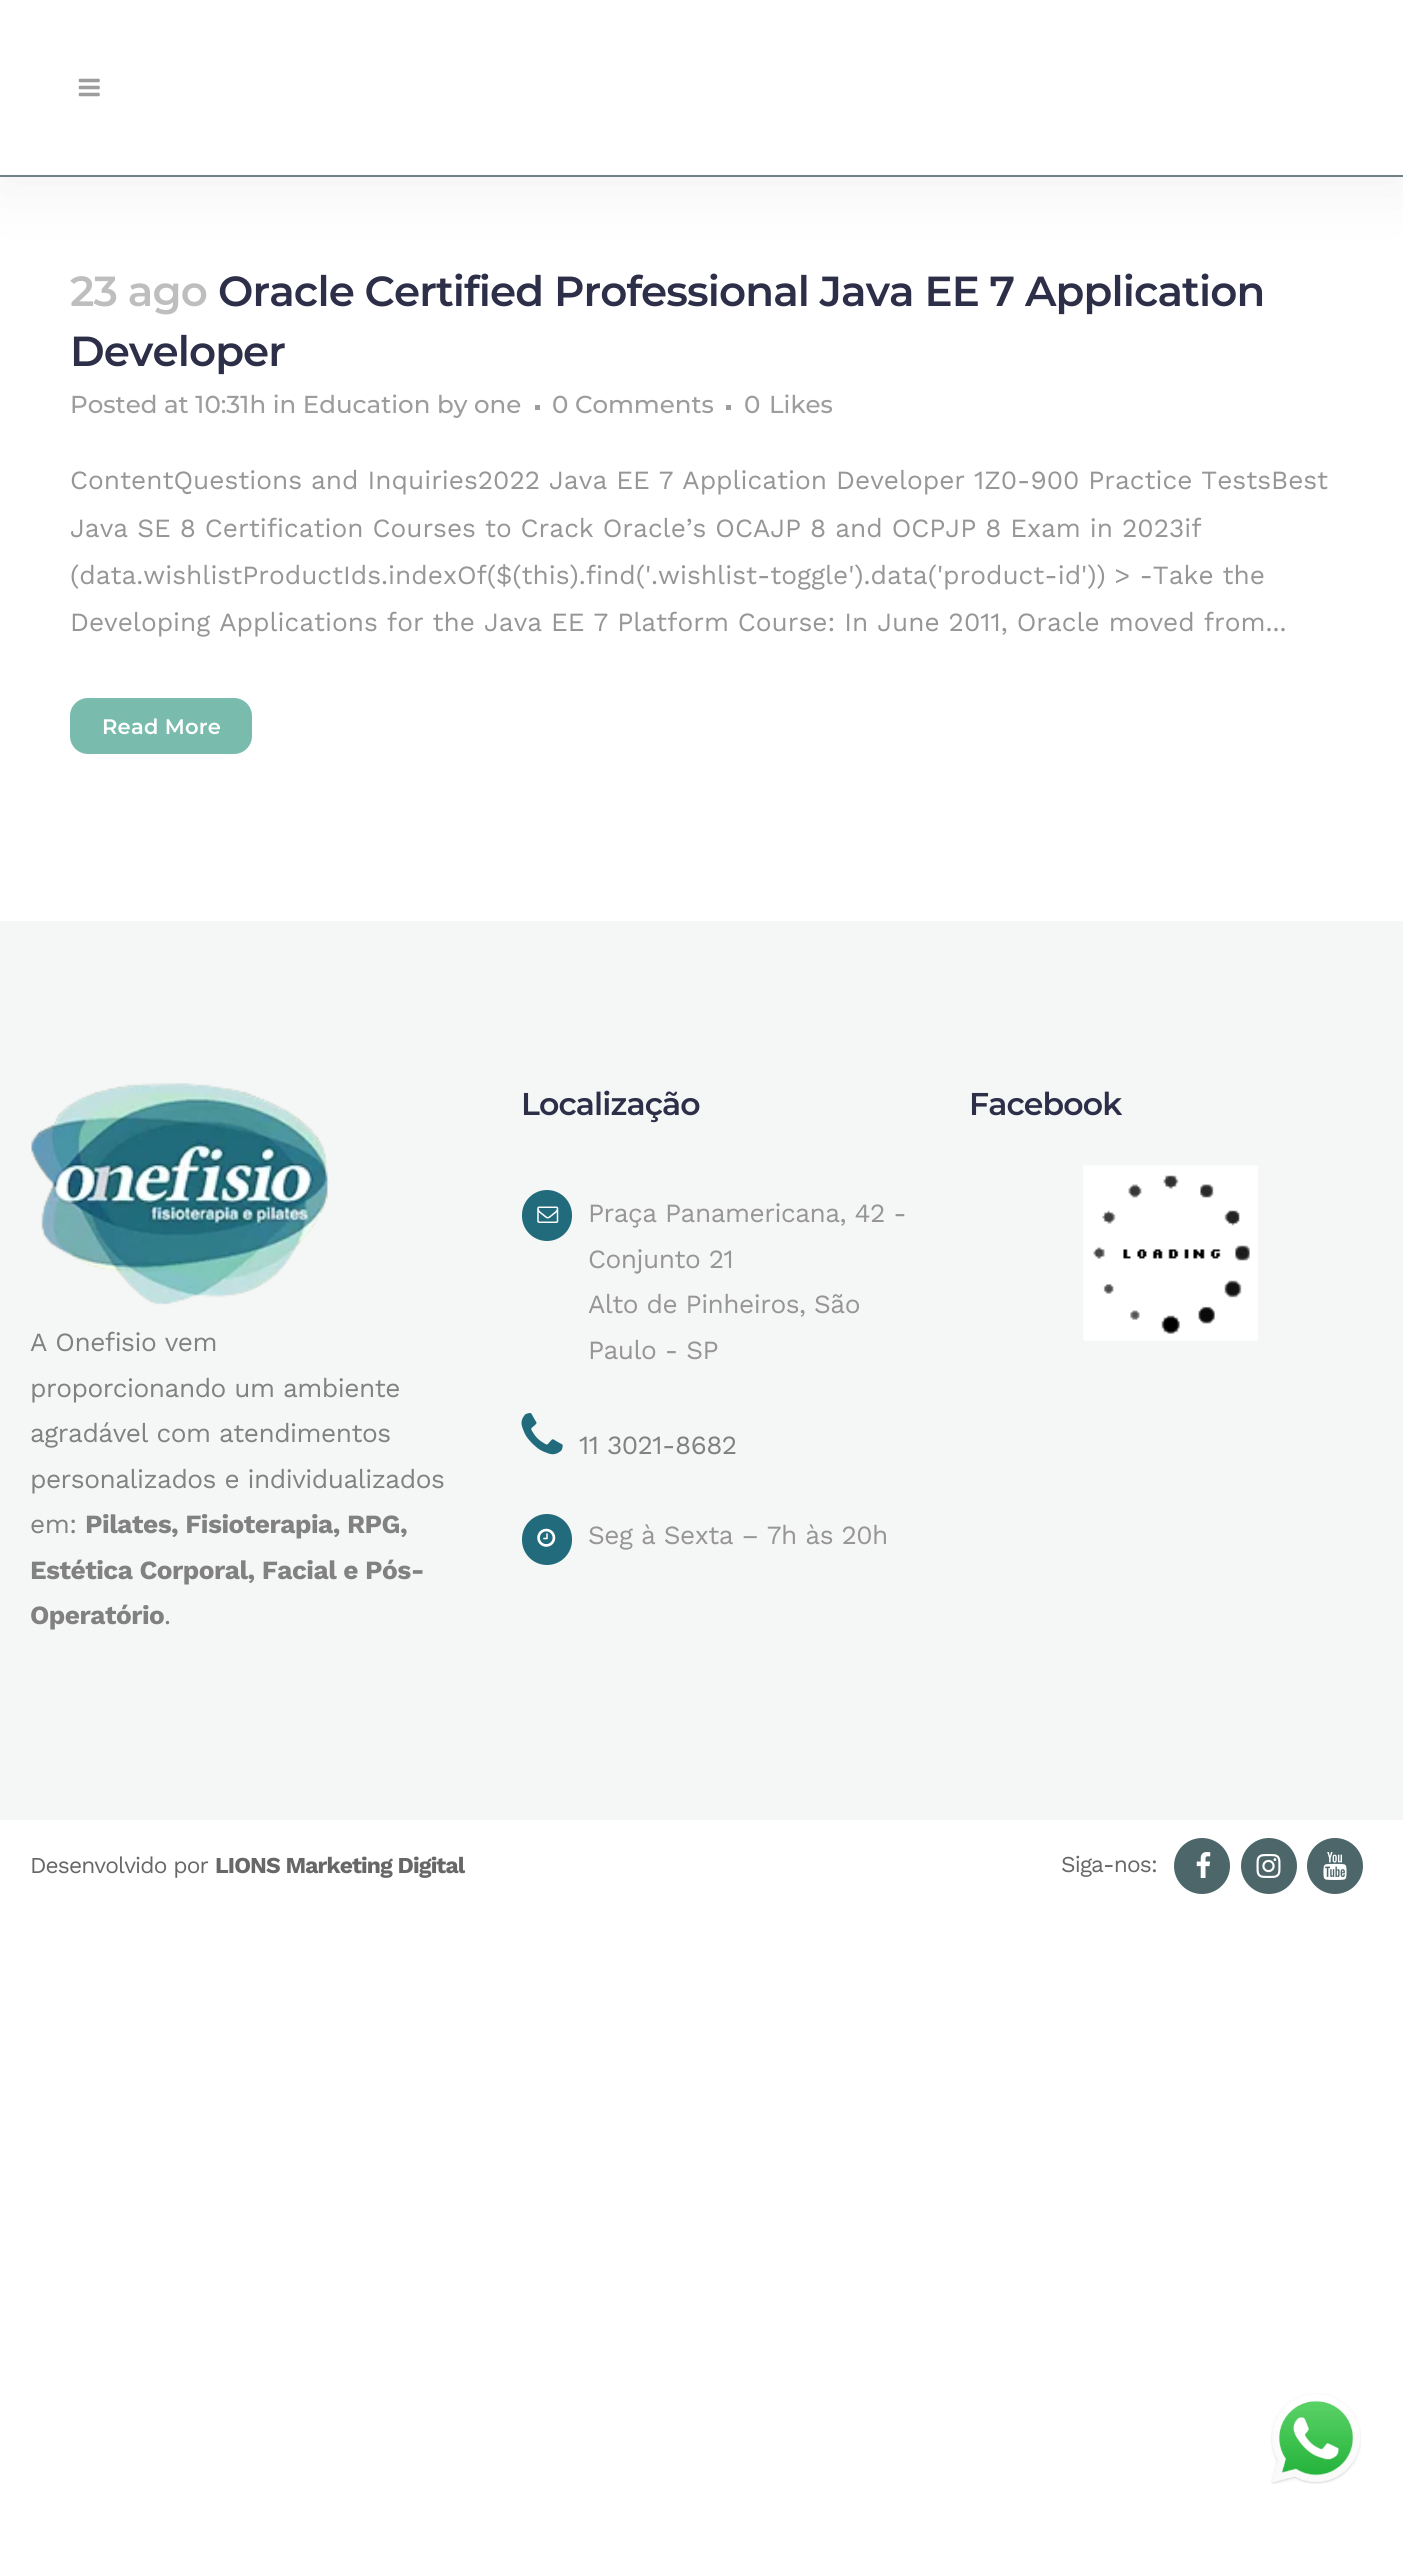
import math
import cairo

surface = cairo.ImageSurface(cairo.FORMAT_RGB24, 1403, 2575)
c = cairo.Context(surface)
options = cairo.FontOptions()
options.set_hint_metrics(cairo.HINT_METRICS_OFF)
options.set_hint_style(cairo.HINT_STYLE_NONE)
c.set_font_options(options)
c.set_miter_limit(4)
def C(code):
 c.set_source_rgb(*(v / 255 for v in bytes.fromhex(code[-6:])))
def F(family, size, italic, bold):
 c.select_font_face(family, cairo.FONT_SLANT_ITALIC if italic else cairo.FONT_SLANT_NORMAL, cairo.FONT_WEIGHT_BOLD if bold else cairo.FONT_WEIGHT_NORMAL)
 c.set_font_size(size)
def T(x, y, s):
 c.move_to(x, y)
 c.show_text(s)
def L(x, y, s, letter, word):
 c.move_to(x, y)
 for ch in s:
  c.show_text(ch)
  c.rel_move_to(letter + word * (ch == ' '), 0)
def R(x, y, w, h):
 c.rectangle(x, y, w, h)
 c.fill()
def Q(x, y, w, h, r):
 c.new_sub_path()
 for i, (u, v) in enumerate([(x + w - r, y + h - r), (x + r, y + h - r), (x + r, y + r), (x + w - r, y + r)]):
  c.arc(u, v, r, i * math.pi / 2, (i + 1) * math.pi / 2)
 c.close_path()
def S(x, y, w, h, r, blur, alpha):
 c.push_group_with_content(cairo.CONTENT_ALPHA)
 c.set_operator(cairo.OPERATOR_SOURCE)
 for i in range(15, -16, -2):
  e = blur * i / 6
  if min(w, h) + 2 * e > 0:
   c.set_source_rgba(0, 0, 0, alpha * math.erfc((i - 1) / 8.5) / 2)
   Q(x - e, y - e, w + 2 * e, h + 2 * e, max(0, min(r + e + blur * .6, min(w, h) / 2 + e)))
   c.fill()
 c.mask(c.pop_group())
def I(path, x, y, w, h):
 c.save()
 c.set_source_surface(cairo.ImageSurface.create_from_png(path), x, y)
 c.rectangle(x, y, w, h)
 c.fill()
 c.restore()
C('ffffff')
c.paint()
C('000000')
S(0,2,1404,177,0,40,.07)
C('ffffff')
R(0,0,1403,175)
C('6f8184')
R(0,175,1403,2)
I('1.png',78,78,22,19)
F('Montserrat SemiBold',42,0,0)
C('bebebe')
L(70,306,'23 ago',-.88,0)
C('2d2e48')
L(218,306,'Oracle Certified Professional Java EE 7 Application',-.88,0)
L(70,366,'Developer',-.88,0)
F('Montserrat Medium',24.5,0,0)
C('9e9c9c')
T(70,413,'Posted at 10:31h in Education by one')
R(535,405,5,5)
T(552,413,'0 Comments')
R(726,405,5,5)
T(744,413,'0')
T(769,413,'Likes')
F('Work Sans',26.25,0,0)
C('979595')
T(70,489,'ContentQuestions and Inquiries2022 Java EE 7 Application Developer 1Z0-900 Practice TestsBest')
T(70,537,'Java SE 8 Certification Courses to Crack Oracle’s OCAJP 8 and OCPJP 8 Exam in 2023if')
T(70,584,'(data.wishlistProductIds.indexOf($(this).find(\'.wishlist-toggle\').data(\'product-id\')) > -Take the')
T(70,631,'Developing Applications for the Java EE 7 Platform Course: In June 2011, Oracle moved from...')
C('79bcae')
Q(71,699,180,54,17)
c.fill_preserve()
c.stroke()
F('Montserrat SemiBold',21,0,0)
C('ffffff')
L(102,734,'Read More',.25,0)
C('f5f6f6')
R(0,921,1403,899)
F('Montserrat SemiBold',31.5,0,0)
C('2d2e48')
L(521,1115,'Localização',-.88,0)
C('216b7c')
Q(523,1191,48,49,24)
c.fill_preserve()
c.stroke()
I('2.png',537,1206,22,17)
F('Work Sans',26.25,0,0)
C('979595')
L(588,1222,'Praça Panamericana, 42 -',-.5,0)
L(588,1268,'Conjunto 21',-.5,0)
L(588,1313,'Alto de Pinheiros, São',-.5,0)
L(588,1359,'Paulo - SP',-.5,0)
I('3.png',521,1413,42,42)
C('818181')
L(579,1454,'11 3021-8682',-.5,0)
C('216b7c')
Q(523,1515,48,49,24)
c.fill_preserve()
c.stroke()
I('4.png',537,1528,19,19)
C('979595')
L(588,1544,'Seg à Sexta – 7h às 20h',-.5,0)
F('Montserrat SemiBold',31.5,0,0)
C('2d2e48')
L(969,1115,'Facebook',-.88,0)
I('5.png',1083,1165,175,176)
I('6.png',31,1083,298,222)
F('Work Sans',26.25,0,0)
C('818181')
L(30,1351,'A Onefisio vem',-.5,0)
L(30,1397,'proporcionando um ambiente',-.5,0)
L(30,1442,'agradável com atendimentos',-.5,0)
L(30,1488,'personalizados e individualizados',-.5,0)
L(30,1533,'em:',-.5,0)
F('Work Sans',26.25,0,1)
L(85,1533,'Pilates, Fisioterapia, RPG,',-.5,0)
L(30,1579,'Estética Corporal, Facial e Pós-',-.5,0)
L(30,1624,'Operatório',-.5,0)
F('Work Sans',26.25,0,0)
L(164,1624,'.',-.5,0)
F('Work Sans',22.75,0,0)
C('686767')
L(30,1873,'Desenvolvido por',-.88,0)
F('Work Sans',22.75,0,1)
L(215,1873,'LIONS Marketing Digital',-.88,0)
F('Work Sans',22.75,0,0)
L(1061,1872,'Siga-nos:',-.88,0)
C('4c666a')
c.new_path()
c.arc(1202,1866,28,0,2 * math.pi)
c.fill()
I('7.png',1196,1852,15,26)
c.arc(1269,1866,28,0,2 * math.pi)
c.fill()
I('8.png',1256,1854,25,24)
c.arc(1335,1866,28,0,2 * math.pi)
c.fill()
I('9.png',1323,1852,24,28)
I('10.png',1271,2393,90,91)
surface.write_to_png('o.png')
